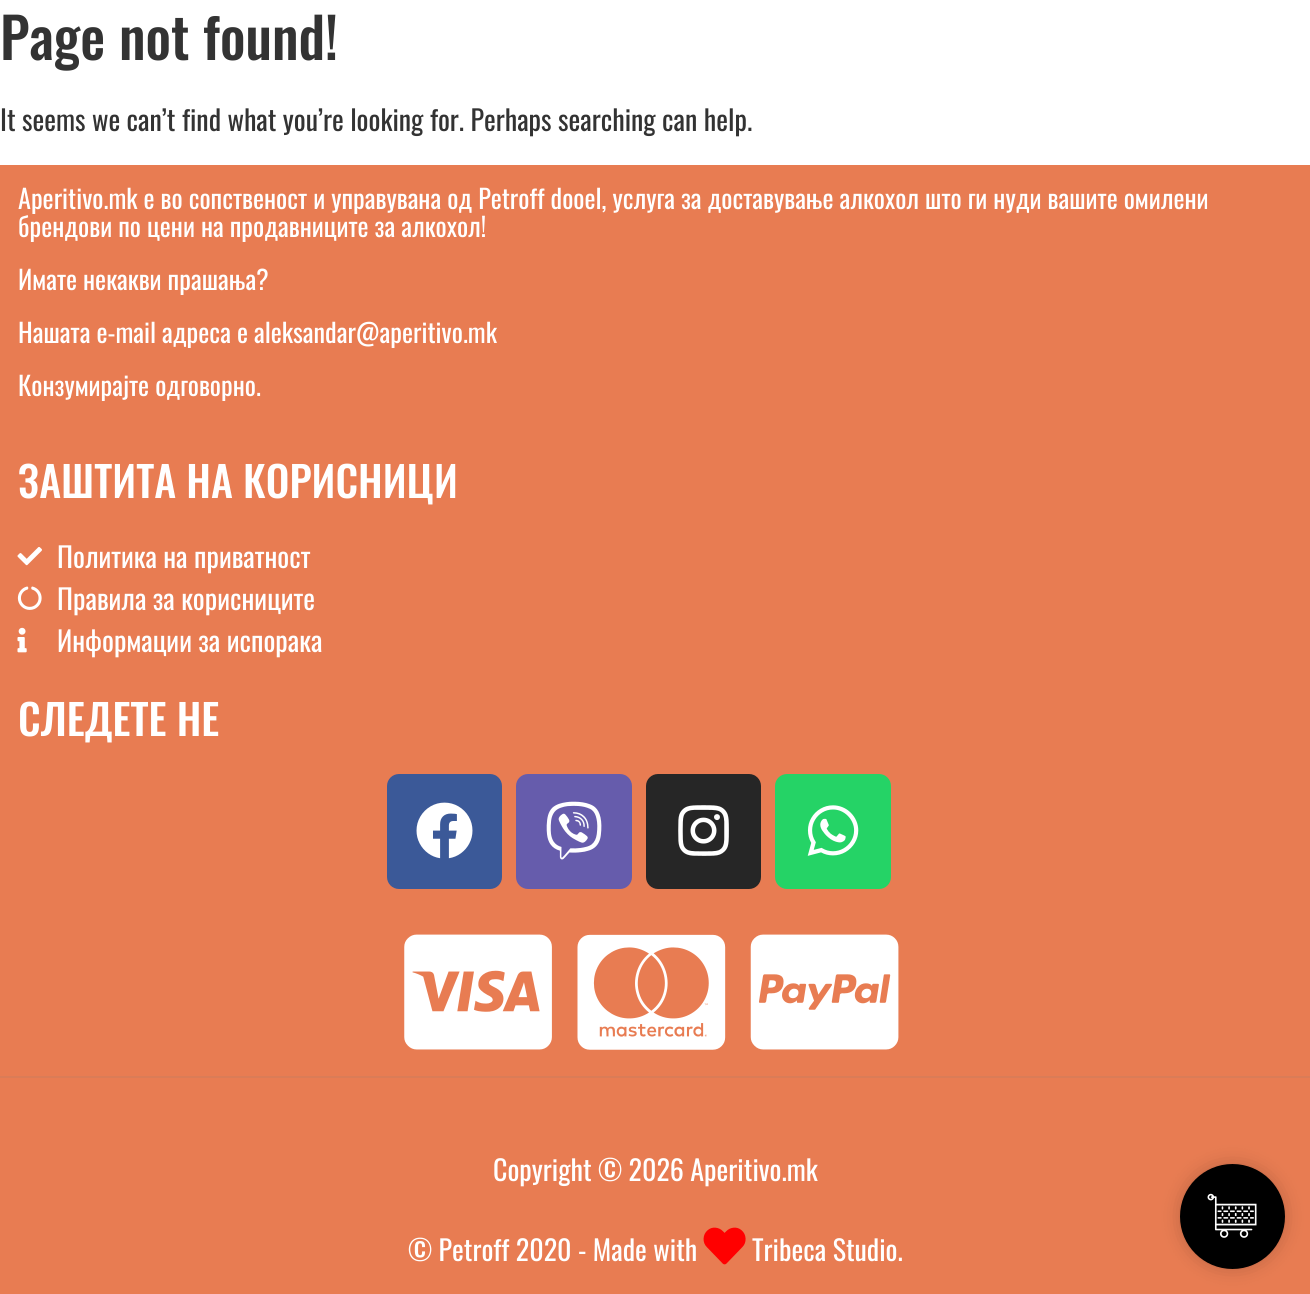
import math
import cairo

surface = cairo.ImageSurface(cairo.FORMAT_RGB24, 1310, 1294)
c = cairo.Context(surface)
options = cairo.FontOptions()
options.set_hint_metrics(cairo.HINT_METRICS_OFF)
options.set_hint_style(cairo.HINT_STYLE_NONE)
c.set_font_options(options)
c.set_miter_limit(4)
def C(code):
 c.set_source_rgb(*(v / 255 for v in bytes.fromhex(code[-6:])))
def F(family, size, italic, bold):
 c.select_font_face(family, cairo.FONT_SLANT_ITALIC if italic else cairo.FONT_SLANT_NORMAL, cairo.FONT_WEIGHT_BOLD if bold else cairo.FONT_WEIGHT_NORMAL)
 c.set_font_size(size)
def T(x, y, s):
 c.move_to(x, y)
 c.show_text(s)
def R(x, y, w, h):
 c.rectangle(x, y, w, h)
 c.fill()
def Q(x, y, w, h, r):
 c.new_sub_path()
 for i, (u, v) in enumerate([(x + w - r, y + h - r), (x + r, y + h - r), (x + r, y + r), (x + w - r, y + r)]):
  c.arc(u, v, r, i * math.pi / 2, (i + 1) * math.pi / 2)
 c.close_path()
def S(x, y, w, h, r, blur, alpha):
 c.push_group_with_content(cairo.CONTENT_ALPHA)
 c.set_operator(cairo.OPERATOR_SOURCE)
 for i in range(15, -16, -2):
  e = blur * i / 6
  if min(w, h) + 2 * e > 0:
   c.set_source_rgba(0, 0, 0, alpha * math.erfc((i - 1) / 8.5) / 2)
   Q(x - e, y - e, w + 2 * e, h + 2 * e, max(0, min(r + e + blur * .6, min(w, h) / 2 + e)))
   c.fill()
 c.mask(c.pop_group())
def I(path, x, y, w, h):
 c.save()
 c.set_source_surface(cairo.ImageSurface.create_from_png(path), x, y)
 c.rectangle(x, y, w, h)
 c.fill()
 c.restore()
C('ffffff')
c.paint()
F('Oswald Medium',56,0,0)
C('333333')
T(0,60,'Page not found!')
F('Oswald',28,0,0)
T(0,131,'It seems we can’t find what you’re looking for. Perhaps searching can help.')
C('e87c52')
R(0,165,1310,911)
F('Oswald',26.25,0,0)
C('ffffff')
T(18,209,'Aperitivo.mk е во сопственост и управувана од Petroff dooel, услуга за доставување алкохол што ги нуди вашите омилени')
T(18,237,'брендови по цени на продавниците за алкохол!')
T(18,290,'Имате некакви прашања?')
T(18,343,'Нашата e-mail адреса е aleksandar@aperitivo.mk')
T(18,396,'Конзумирајте одговорно.')
F('Oswald Medium',42,0,0)
T(18,498,'ЗАШТИТА НА КОРИСНИЦИ')
I('1.png',17,547,25,19)
F('Oswald',28,0,0)
T(57,568,'Политика на приватност')
I('2.png',17,586,25,24)
T(57,610,'Правила за корисниците')
I('3.png',17,627,10,26)
T(57,652,'Информации за испорака')
F('Oswald Medium',42,0,0)
T(18,736,'СЛЕДЕТЕ НЕ')
C('3b5998')
Q(387,774,115,115,12)
c.fill()
I('4.png',416,802,57,57)
C('665cac')
Q(516,774,116,115,12)
c.fill()
I('5.png',546,801,56,59)
C('262626')
Q(646,774,115,115,12)
c.fill()
I('6.png',678,805,51,51)
C('25d366')
Q(775,774,116,115,12)
c.fill()
I('7.png',807,805,52,51)
I('8.png',404,934,148,116)
I('9.png',577,934,149,116)
I('10.png',750,934,149,116)
C('e87c52')
R(0,1078,1310,216)
C('da7c57')
R(0,1076,1310,2)
F('Oswald',28,0,0)
C('ffffff')
T(493,1181,'Copyright © 2026 Aperitivo.mk')
T(408,1261,'© Petroff 2020 - Made with')
I('11.png',703,1227,43,38)
T(752,1261,'Tribeca Studio.')
C('000000')
S(1180,1164,105,105,52.5,9,.19)
C('000000')
c.arc(1232.5,1216.5,52.5,0,2 * math.pi)
c.fill()
I('12.png',1207,1193,50,45)
surface.write_to_png('o.png')
